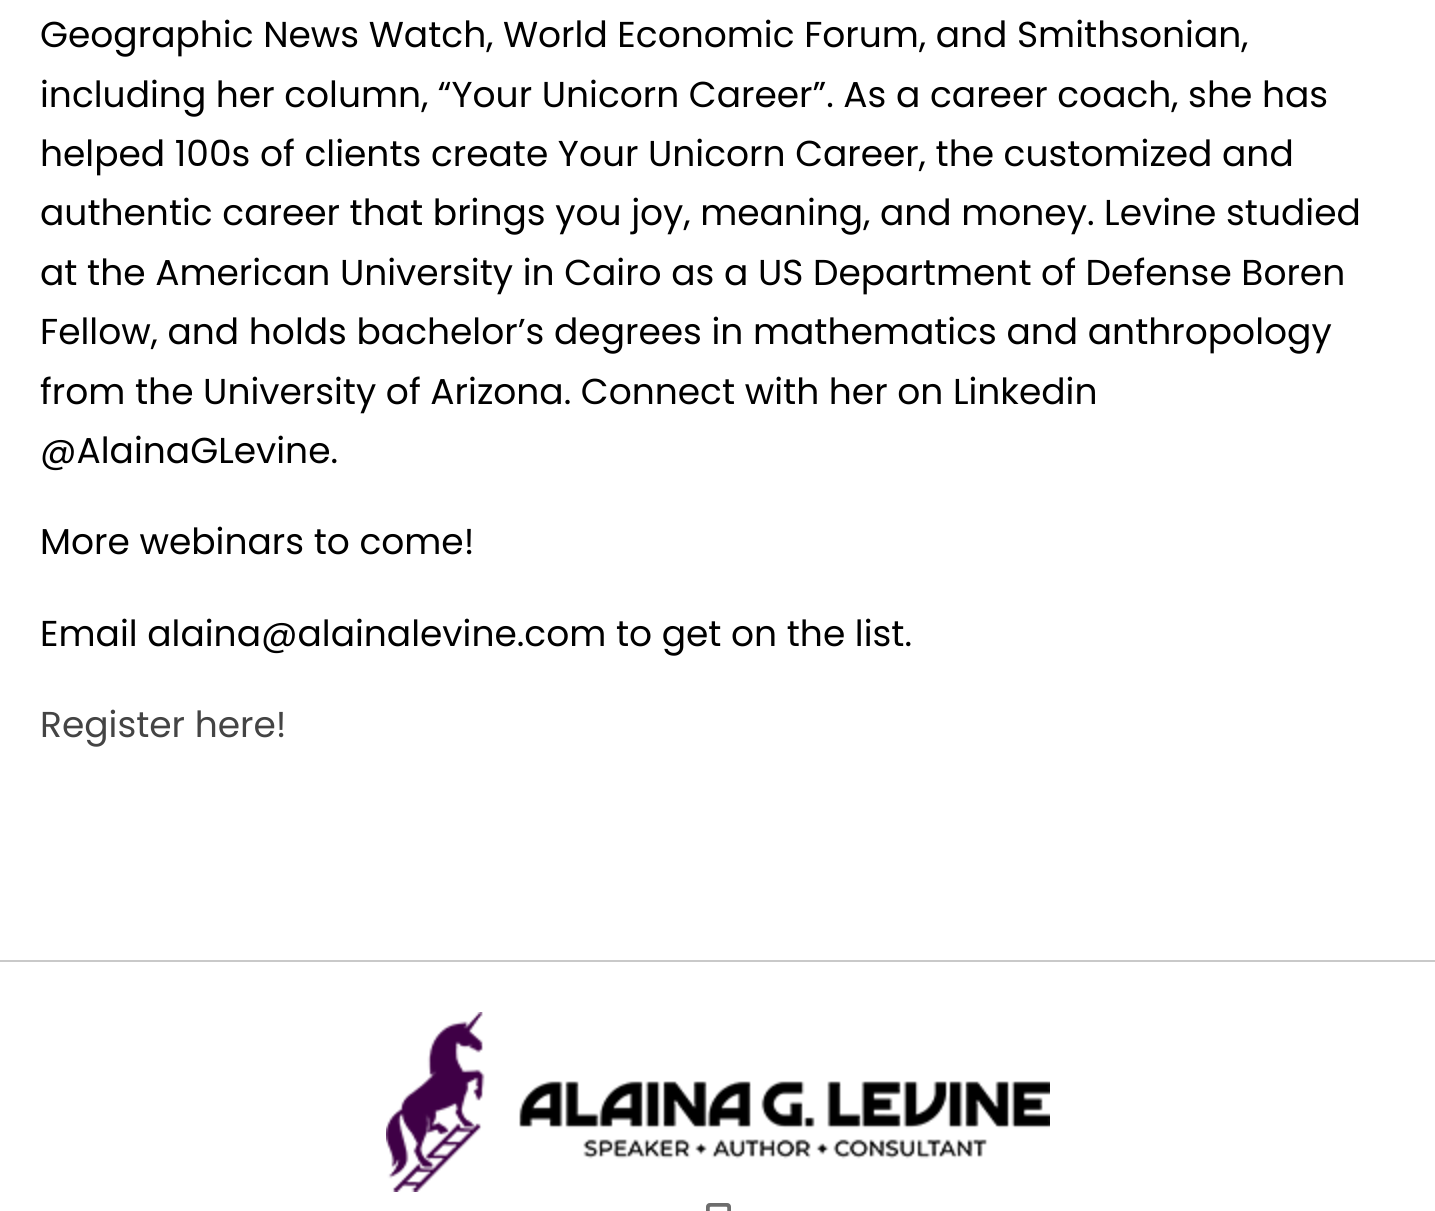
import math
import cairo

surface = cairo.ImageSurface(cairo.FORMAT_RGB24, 1435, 1211)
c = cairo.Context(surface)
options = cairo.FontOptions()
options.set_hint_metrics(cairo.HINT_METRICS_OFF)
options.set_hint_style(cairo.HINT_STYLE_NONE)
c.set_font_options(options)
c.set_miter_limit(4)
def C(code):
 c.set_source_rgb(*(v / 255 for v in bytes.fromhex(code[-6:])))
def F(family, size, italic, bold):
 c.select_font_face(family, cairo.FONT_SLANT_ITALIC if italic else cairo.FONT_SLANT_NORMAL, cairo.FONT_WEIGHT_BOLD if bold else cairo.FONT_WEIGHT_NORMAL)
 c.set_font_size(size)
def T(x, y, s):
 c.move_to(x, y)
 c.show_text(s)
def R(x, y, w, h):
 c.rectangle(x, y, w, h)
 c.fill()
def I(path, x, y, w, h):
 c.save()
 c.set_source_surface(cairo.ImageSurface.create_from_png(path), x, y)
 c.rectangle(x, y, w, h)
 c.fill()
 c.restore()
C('ffffff')
c.paint()
F('Poppins',36,0,0)
C('000000')
T(40,47,'Geographic News Watch, World Economic Forum, and Smithsonian,')
T(40,107,'including her column, “Your Unicorn Career”. As a career coach, she has')
T(40,166,'helped 100s of clients create Your Unicorn Career, the customized and')
T(40,225,'authentic career that brings you joy, meaning, and money. Levine studied')
T(40,285,'at the American University in Cairo as a US Department of Defense Boren')
T(40,344,'Fellow, and holds bachelor’s degrees in mathematics and anthropology')
T(40,404,'from the University of Arizona. Connect with her on Linkedin')
T(40,463,'@AlainaGLevine.')
T(40,554,'More webinars to come!')
T(40,646,'Email alaina@alainalevine.com to get on the list.')
C('444444')
T(40,737,'Register here!')
C('c9c9c9')
R(0,960,1435,2)
I('1.png',386,1012,664,180)
I('2.png',706,1203,25,8)
surface.write_to_png('o.png')
